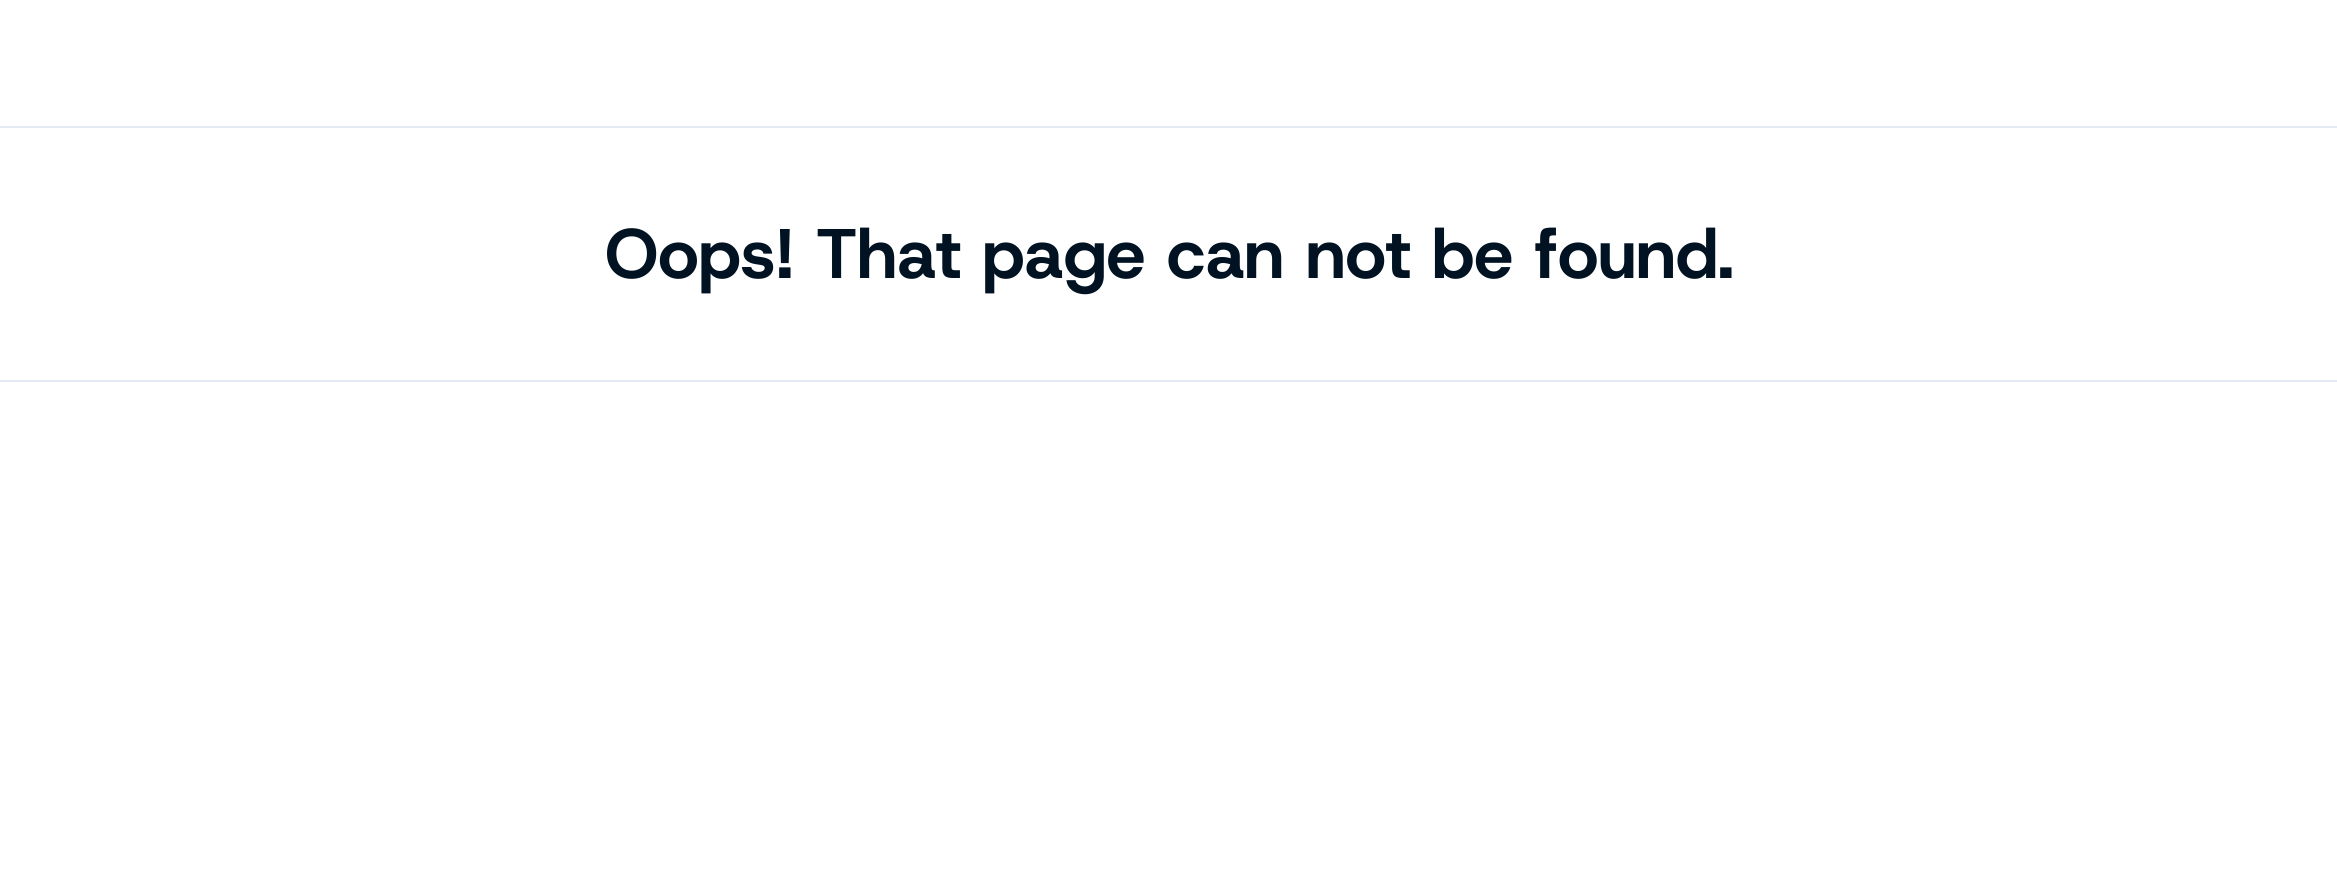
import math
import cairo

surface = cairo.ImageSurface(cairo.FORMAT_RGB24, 2337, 888)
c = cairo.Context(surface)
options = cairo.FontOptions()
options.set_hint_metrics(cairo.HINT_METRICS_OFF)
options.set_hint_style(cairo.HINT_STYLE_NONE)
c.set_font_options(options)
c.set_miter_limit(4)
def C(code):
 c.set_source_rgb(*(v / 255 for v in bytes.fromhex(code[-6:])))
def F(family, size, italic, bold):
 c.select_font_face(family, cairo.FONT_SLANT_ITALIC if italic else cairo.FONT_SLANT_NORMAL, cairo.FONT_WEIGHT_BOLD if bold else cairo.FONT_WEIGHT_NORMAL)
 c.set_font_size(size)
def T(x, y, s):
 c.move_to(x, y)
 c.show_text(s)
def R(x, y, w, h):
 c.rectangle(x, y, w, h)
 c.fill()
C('ffffff')
c.paint()
C('e4eaf4')
R(0,126,2337,2)
R(0,380,2337,2)
F('Host Grotesk',70,0,1)
C('011222')
T(605,278,'Oops! That page can not be found.')
surface.write_to_png('o.png')
